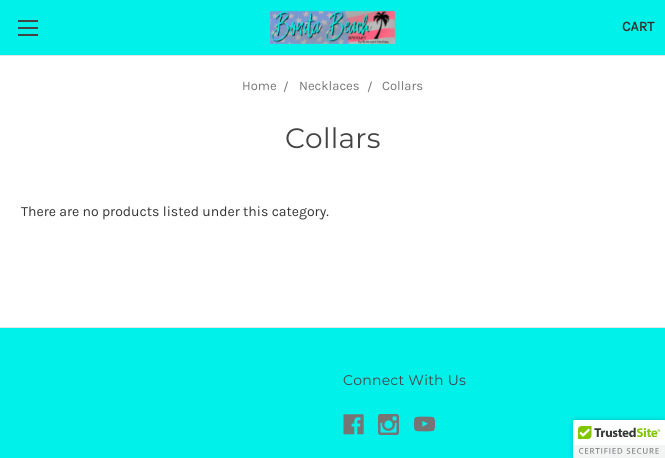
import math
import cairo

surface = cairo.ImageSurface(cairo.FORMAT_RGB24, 665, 458)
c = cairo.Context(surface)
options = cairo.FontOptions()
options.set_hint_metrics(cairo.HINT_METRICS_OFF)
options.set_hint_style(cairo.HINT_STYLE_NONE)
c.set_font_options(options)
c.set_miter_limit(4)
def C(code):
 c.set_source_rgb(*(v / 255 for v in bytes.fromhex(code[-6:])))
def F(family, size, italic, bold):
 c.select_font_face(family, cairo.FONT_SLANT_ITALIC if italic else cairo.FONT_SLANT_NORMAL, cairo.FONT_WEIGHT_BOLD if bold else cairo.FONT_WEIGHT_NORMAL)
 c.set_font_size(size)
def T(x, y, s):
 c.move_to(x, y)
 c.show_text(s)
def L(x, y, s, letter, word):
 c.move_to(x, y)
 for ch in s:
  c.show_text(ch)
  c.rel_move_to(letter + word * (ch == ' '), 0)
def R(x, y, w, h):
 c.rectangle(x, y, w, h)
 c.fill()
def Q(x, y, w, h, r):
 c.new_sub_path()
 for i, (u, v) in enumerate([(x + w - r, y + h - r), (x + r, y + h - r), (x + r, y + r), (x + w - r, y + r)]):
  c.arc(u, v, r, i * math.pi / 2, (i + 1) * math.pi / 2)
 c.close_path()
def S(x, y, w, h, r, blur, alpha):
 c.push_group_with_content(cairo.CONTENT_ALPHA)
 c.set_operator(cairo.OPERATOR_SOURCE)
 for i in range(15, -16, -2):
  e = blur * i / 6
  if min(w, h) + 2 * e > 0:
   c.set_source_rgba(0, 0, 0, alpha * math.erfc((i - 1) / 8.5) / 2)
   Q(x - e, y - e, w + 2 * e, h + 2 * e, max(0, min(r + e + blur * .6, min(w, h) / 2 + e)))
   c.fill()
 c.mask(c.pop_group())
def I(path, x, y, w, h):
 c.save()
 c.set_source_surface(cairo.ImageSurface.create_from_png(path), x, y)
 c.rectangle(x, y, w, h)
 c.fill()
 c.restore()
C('ffffff')
c.paint()
C('00f0ea')
R(0,0,665,55)
C('e5e5e5')
R(0,55,665,1)
C('444444')
R(18,27,20,2)
R(18,20,20,2)
R(18,34,20,2)
I('1.png',270,10,125,34)
F('Karla',14,0,1)
C('333333')
T(622,31,'CART')
F('Karla',13,0,0)
C('757575')
T(242,90,'Home')
T(283,91,'/')
T(299,90,'Necklaces')
T(367,91,'/')
T(382,90,'Collars')
F('Montserrat',28,0,0)
C('444444')
L(285,148,'Collars',.25,0)
F('Karla',14,0,0)
C('333333')
T(21,216,'There are no products listed under this category.')
C('00f0ea')
R(0,328,665,130)
C('e5e5e5')
R(0,327,665,1)
F('Montserrat',14,0,0)
C('444444')
L(343,385,'Connect With Us',.25,0)
I('2.png',343,414,21,21)
I('3.png',378,414,21,21)
I('4.png',414,416,21,16)
C('000000')
S(573,420,92,38,2,2.5,.2)
C('ffffff')
c.new_path()
c.move_to(575,420)
c.line_to(665,420)
c.line_to(665,458)
c.line_to(573,458)
c.line_to(573,422)
c.curve_to(573,421,574,420,575,420)
c.close_path()
c.fill()
I('5.png',573,420,92,38)
surface.write_to_png('o.png')
